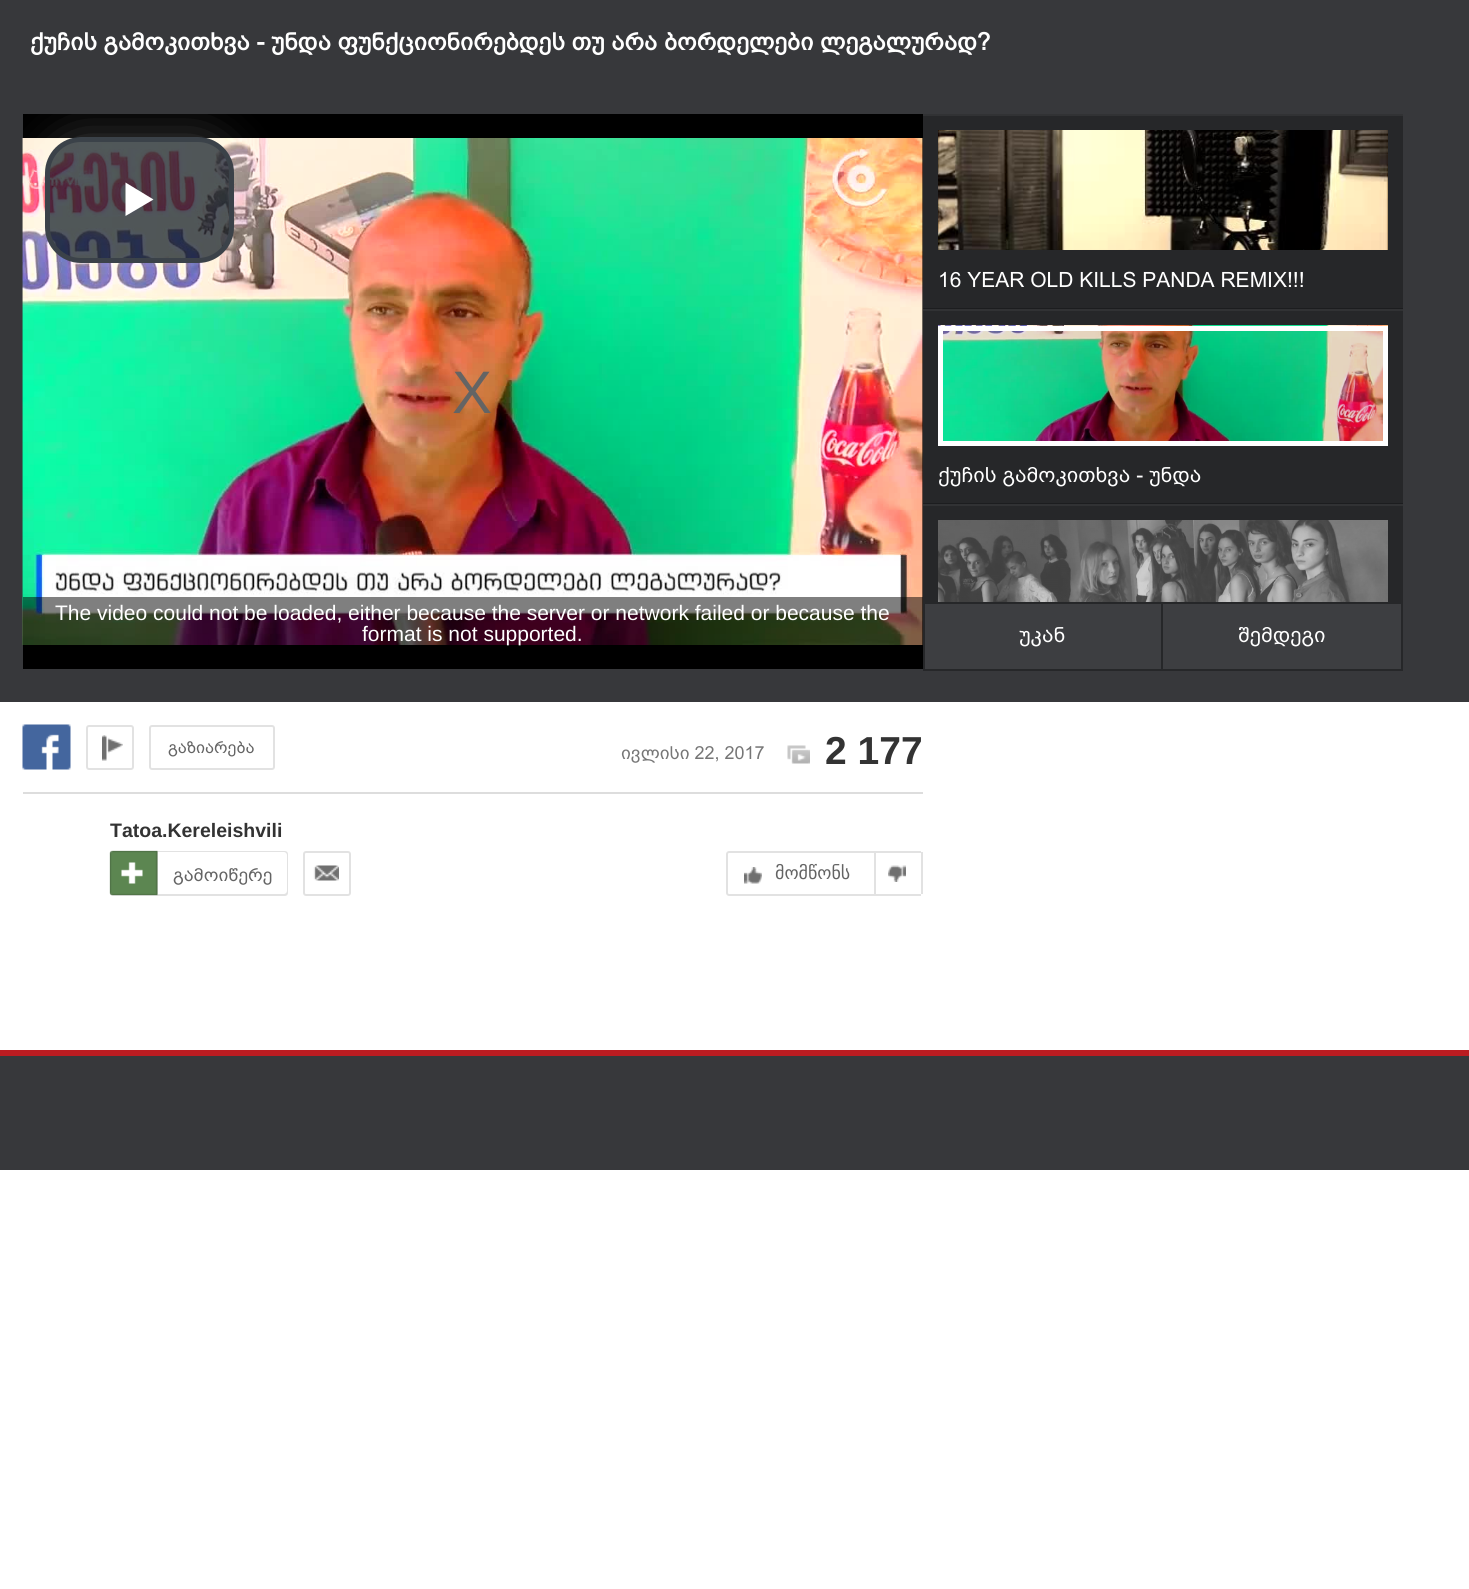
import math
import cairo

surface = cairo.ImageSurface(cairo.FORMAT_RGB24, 1469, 1589)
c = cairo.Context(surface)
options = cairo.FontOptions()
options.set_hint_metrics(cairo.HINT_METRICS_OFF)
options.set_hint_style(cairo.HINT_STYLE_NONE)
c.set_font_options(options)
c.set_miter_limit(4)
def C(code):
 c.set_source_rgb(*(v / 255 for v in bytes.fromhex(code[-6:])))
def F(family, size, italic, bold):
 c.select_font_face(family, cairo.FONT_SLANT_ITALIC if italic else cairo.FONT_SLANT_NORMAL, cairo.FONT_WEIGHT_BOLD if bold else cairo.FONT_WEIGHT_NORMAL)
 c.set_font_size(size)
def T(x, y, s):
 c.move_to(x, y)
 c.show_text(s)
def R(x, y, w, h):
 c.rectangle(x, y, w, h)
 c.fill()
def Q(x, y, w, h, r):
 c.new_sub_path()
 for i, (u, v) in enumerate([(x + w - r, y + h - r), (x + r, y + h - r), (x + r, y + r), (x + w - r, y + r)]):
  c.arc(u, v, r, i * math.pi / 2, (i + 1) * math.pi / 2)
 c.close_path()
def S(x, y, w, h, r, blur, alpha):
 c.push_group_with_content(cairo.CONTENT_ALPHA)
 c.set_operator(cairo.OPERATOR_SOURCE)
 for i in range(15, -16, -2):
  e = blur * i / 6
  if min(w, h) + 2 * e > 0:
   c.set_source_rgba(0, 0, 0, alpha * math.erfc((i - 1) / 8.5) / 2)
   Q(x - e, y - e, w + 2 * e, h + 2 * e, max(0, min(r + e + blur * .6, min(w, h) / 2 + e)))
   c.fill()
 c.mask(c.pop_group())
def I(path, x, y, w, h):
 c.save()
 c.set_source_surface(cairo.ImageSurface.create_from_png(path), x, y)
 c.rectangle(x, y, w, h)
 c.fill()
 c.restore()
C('ffffff')
c.paint()
C('37383b')
R(0,0,1469,702)
F('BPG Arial',24,0,1)
C('ffffff')
T(30,50,'ქუჩის გამოკითხვა - უნდა ფუნქციონირებდეს თუ არა ბორდელები ლეგალურად?')
C('000000')
R(23,114,900,555)
I('1.png',22,138,901,507)
I('2.png',22,138,901,507)
c.save()
c.rectangle(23,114,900,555)
c.clip()
c.set_fill_rule(cairo.FILL_RULE_EVEN_ODD)
c.new_path()
c.move_to(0,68)
c.line_to(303,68)
c.line_to(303,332)
c.line_to(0,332)
c.close_path()
c.move_to(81,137)
c.line_to(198,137)
c.curve_to(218,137,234,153,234,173)
c.line_to(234,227)
c.curve_to(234,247,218,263,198,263)
c.line_to(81,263)
c.curve_to(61,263,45,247,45,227)
c.line_to(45,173)
c.curve_to(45,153,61,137,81,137)
c.close_path()
c.clip()
C('ffffff')
S(45,137,189,126,36,22.5,.25)
c.restore()
c.set_source_rgba(0.027,0.078,0.118,0.7)
Q(47.5,139.5,184,121,33.5)
c.fill_preserve()
C('3b4249')
c.set_line_width(5)
c.stroke()
C('ffffff')
c.new_path()
c.move_to(125.5,182.5)
c.line_to(153.5,199.5)
c.line_to(125.5,216)
c.close_path()
c.fill()
F('Liberation Sans',60,0,0)
C('646464')
T(452,413,'X')
c.set_source_rgba(0,0,0,0.5)
R(23,597,900,48)
F('Liberation Sans',21,0,0)
C('ffffff')
T(55,620,'The video could not be loaded, either because the server or network failed or because the')
T(362,641,'format is not supported.')
C('262729')
R(923,116,480,486)
C('313234')
R(923,114,480,2)
C('1c1d1f')
R(923,308,480,1)
I('3.png',938,130,450,120)
F('BPG Arial',21,0,0)
C('ffffff')
T(938,287,'16 YEAR OLD KILLS PANDA REMIX!!!')
C('313234')
R(923,309,480,2)
C('1c1d1f')
R(923,503,480,1)
I('4.png',938,325,450,116)
c.rectangle(940.5,328.5,445,115)
C('ffffff')
c.stroke()
T(938,482,'ქუჩის გამოკითხვა - უნდა')
C('313234')
R(923,504,480,2)
I('5.png',938,520,450,82)
C('3d3e41')
c.rectangle(924,603,238,67)
c.fill_preserve()
C('262729')
c.set_line_width(2)
c.stroke()
C('ffffff')
T(1019,642,'უკან')
C('3d3e41')
R(1163,604,238,65)
C('262729')
R(1163,602,240,2)
R(1401,602,2,69)
R(1163,669,240,2)
C('ffffff')
T(1238,642,'შემდეგი')
C('dddddd')
R(23,792,900,2)
I('6.png',22,724,49,46)
I('7.png',102,735,21,26)
Q(87,726,46,43,2)
C('e2e2e2')
c.stroke()
Q(150,726,124,43,2)
c.stroke()
F('BPG Arial',16.5,0,0)
C('646464')
T(168,753,'გაზიარება')
F('BPG Arial',18,0,0)
C('767676')
T(621,759,'ივლისი 22, 2017')
I('8.png',787,745,23,19)
F('Liberation Sans',39,0,1)
C('333333')
T(825,764,'2 177')
F('Liberation Sans',19.5,0,1)
T(110,837,'Tatoa.Kereleishvili')
C('e2e2e2')
Q(110,851,178,45,3)
c.fill()
I('9.png',109,850,49,46)
C('ffffff')
c.new_path()
c.move_to(158,852)
c.line_to(284,852)
c.curve_to(285.5,852,287,853.5,287,855)
c.line_to(287,891)
c.curve_to(287,892.5,285.5,894,284,894)
c.line_to(158,894)
c.close_path()
c.fill()
F('BPG Arial',18,0,0)
C('646464')
T(173,881,'გამოიწერე')
I('10.png',313,865,26,16)
Q(304,852,46,43,2)
C('e2e2e2')
c.stroke()
c.new_path()
c.move_to(729,852)
c.line_to(875,852)
c.line_to(875,895)
c.line_to(729,895)
c.curve_to(728,895,727,894,727,893)
c.line_to(727,854)
c.curve_to(727,853,728,852,729,852)
c.close_path()
c.stroke()
I('11.png',744,867,18,17)
F('DejaVu Sans',18,0,0)
C('646464')
T(775,879,'მომწონს')
C('e2e2e2')
R(876,851,45,2)
R(921,852,2,42)
R(876,894,45,2)
I('12.png',888,865,18,17)
C('37383b')
R(0,1056,1469,114)
C('bb1c21')
R(0,1050,1469,6)
surface.write_to_png('o.png')
